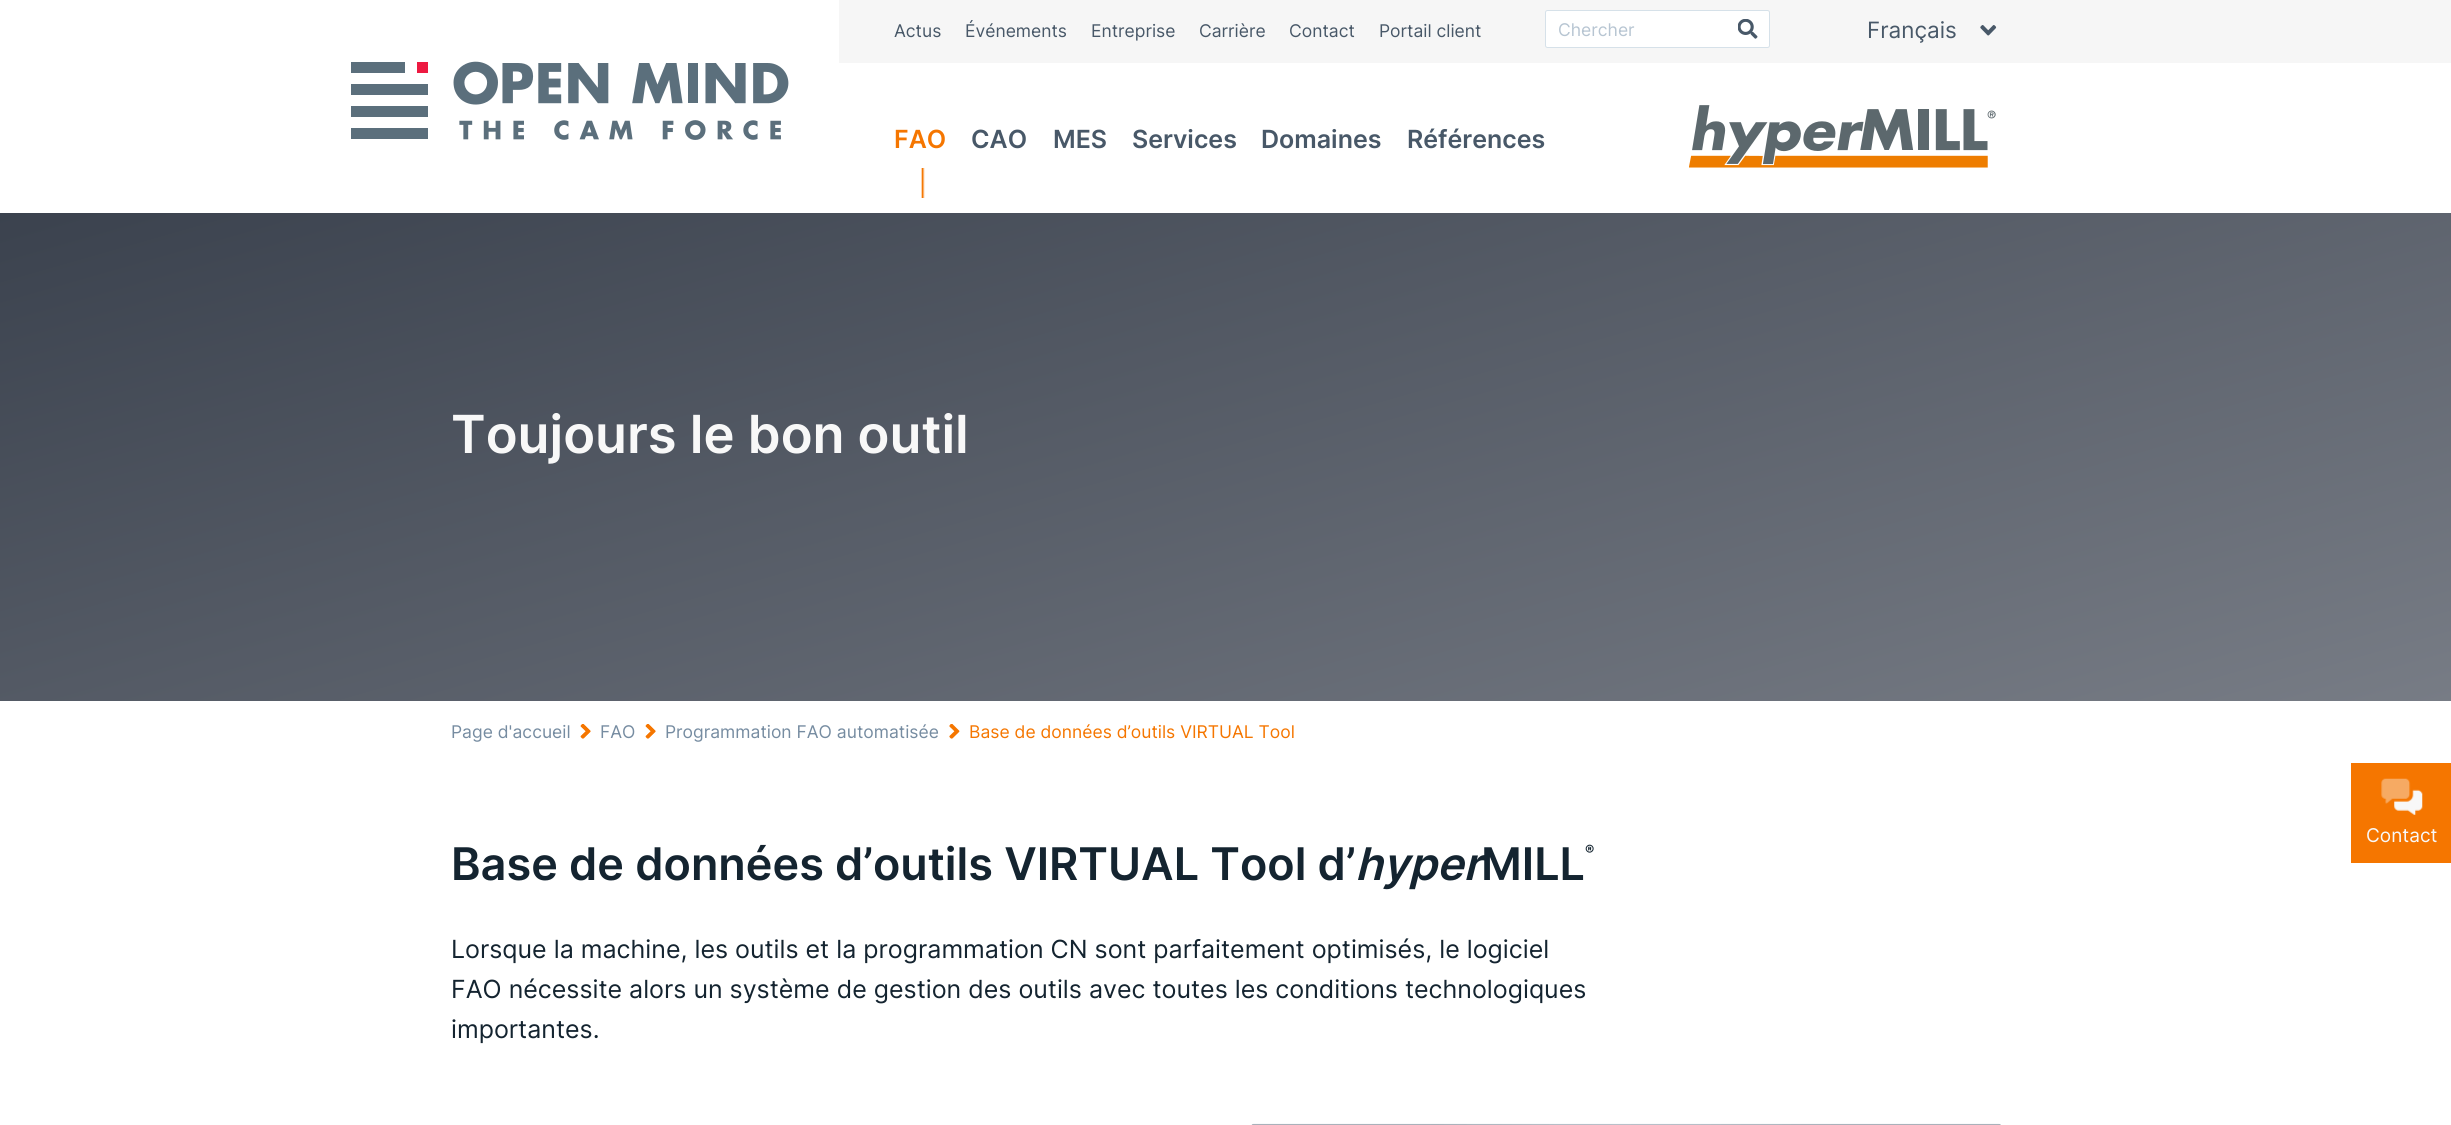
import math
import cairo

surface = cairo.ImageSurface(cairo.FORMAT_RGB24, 2451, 1125)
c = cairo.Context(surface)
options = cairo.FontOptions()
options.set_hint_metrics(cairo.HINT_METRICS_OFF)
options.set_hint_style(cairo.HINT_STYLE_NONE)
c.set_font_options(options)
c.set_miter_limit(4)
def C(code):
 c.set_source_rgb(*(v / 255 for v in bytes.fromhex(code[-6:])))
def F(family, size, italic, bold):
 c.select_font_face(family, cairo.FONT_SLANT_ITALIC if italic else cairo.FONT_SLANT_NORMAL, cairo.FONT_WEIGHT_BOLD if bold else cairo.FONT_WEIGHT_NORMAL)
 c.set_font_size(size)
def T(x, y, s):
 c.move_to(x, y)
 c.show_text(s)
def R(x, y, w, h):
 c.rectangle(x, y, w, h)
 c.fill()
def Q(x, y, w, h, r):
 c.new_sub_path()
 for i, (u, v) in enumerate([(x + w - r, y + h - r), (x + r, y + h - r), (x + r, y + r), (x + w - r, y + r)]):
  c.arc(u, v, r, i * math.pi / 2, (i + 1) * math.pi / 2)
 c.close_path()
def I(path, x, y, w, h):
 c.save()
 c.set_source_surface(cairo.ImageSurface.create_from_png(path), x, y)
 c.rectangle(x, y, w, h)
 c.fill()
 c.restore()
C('ffffff')
c.paint()
C('f6f6f6')
R(839,0,1612,63)
F('Inter',17.5,0,0)
C('485868')
T(894,37,'Actus')
T(965,37,'Événements')
T(1091,37,'Entreprise')
T(1199,37,'Carrière')
T(1289,37,'Contact')
T(1379,37,'Portail client')
C('ffffff')
Q(1545.5,10.5,224,37,2)
c.fill_preserve()
C('d6e1e9')
c.set_line_width(1)
c.stroke()
C('b7c5d2')
T(1558,36,'Chercher')
I('1.png',1738,19,20,20)
F('Inter',22.5,0,0)
C('485868')
T(1867,38,'Français')
I('2.png',1980,25,17,11)
I('3.png',351,61,438,79)
F('Inter SemiBold',25,0,0)
C('f57600')
T(894,148,'FAO')
gradient = cairo.LinearGradient(883,138,959,138)
gradient.add_color_stop_rgba(.5,1,1,1,1)
gradient.add_color_stop_rgba(.52,0.961,0.463,0,1)
gradient.add_color_stop_rgba(.55,1,1,1,1)
c.set_source(gradient)
R(921,168,4,30)
C('485868')
T(971,148,'CAO')
T(1053,148,'MES')
T(1132,148,'Services')
T(1261,148,'Domaines')
T(1407,148,'Références')
I('4.png',1689,105,307,63)
gradient = cairo.LinearGradient(1068,-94,1383,1007)
gradient.add_color_stop_rgba(0,0.231,0.259,0.306,1)
gradient.add_color_stop_rgba(1,0.467,0.486,0.522,1)
c.set_source(gradient)
R(0,213,2451,488)
F('Inter SemiBold',52.5,0,0)
C('f8f8f8')
T(451,453,'Toujours le bon outil')
F('Inter',17.5,0,0)
C('768ca1')
T(451,738,'Page d\'accueil')
I('5.png',580,724,11,15)
T(600,738,'FAO')
I('6.png',645,724,11,15)
T(665,738,'Programmation FAO automatisée')
I('7.png',949,724,11,15)
C('f57600')
T(969,738,'Base de données d’outils VIRTUAL Tool')
R(2351,763,100,100)
I('8.png',2381,778,42,37)
F('Inter',19,0,0)
C('f8f8f8')
T(2366,842,'Contact')
F('Inter SemiBold',45,0,0)
C('142430')
T(451,880,'Base de données d’outils VIRTUAL Tool d’')
F('Inter SemiBold',45,1,0)
T(1355,880,'hyper')
F('Inter SemiBold',45,0,0)
T(1481,880,'MILL')
F('Inter SemiBold',14,0,0)
T(1585,855,'®')
F('Inter',25,0,0)
T(451,958,'Lorsque la machine, les outils et la programmation CN sont parfaitement optimisés, le logiciel')
T(451,998,'FAO nécessite alors un système de gestion des outils avec toutes les conditions technologiques')
T(451,1038,'importantes.')
I('9.png',1251,1123,750,2)
surface.write_to_png('o.png')
